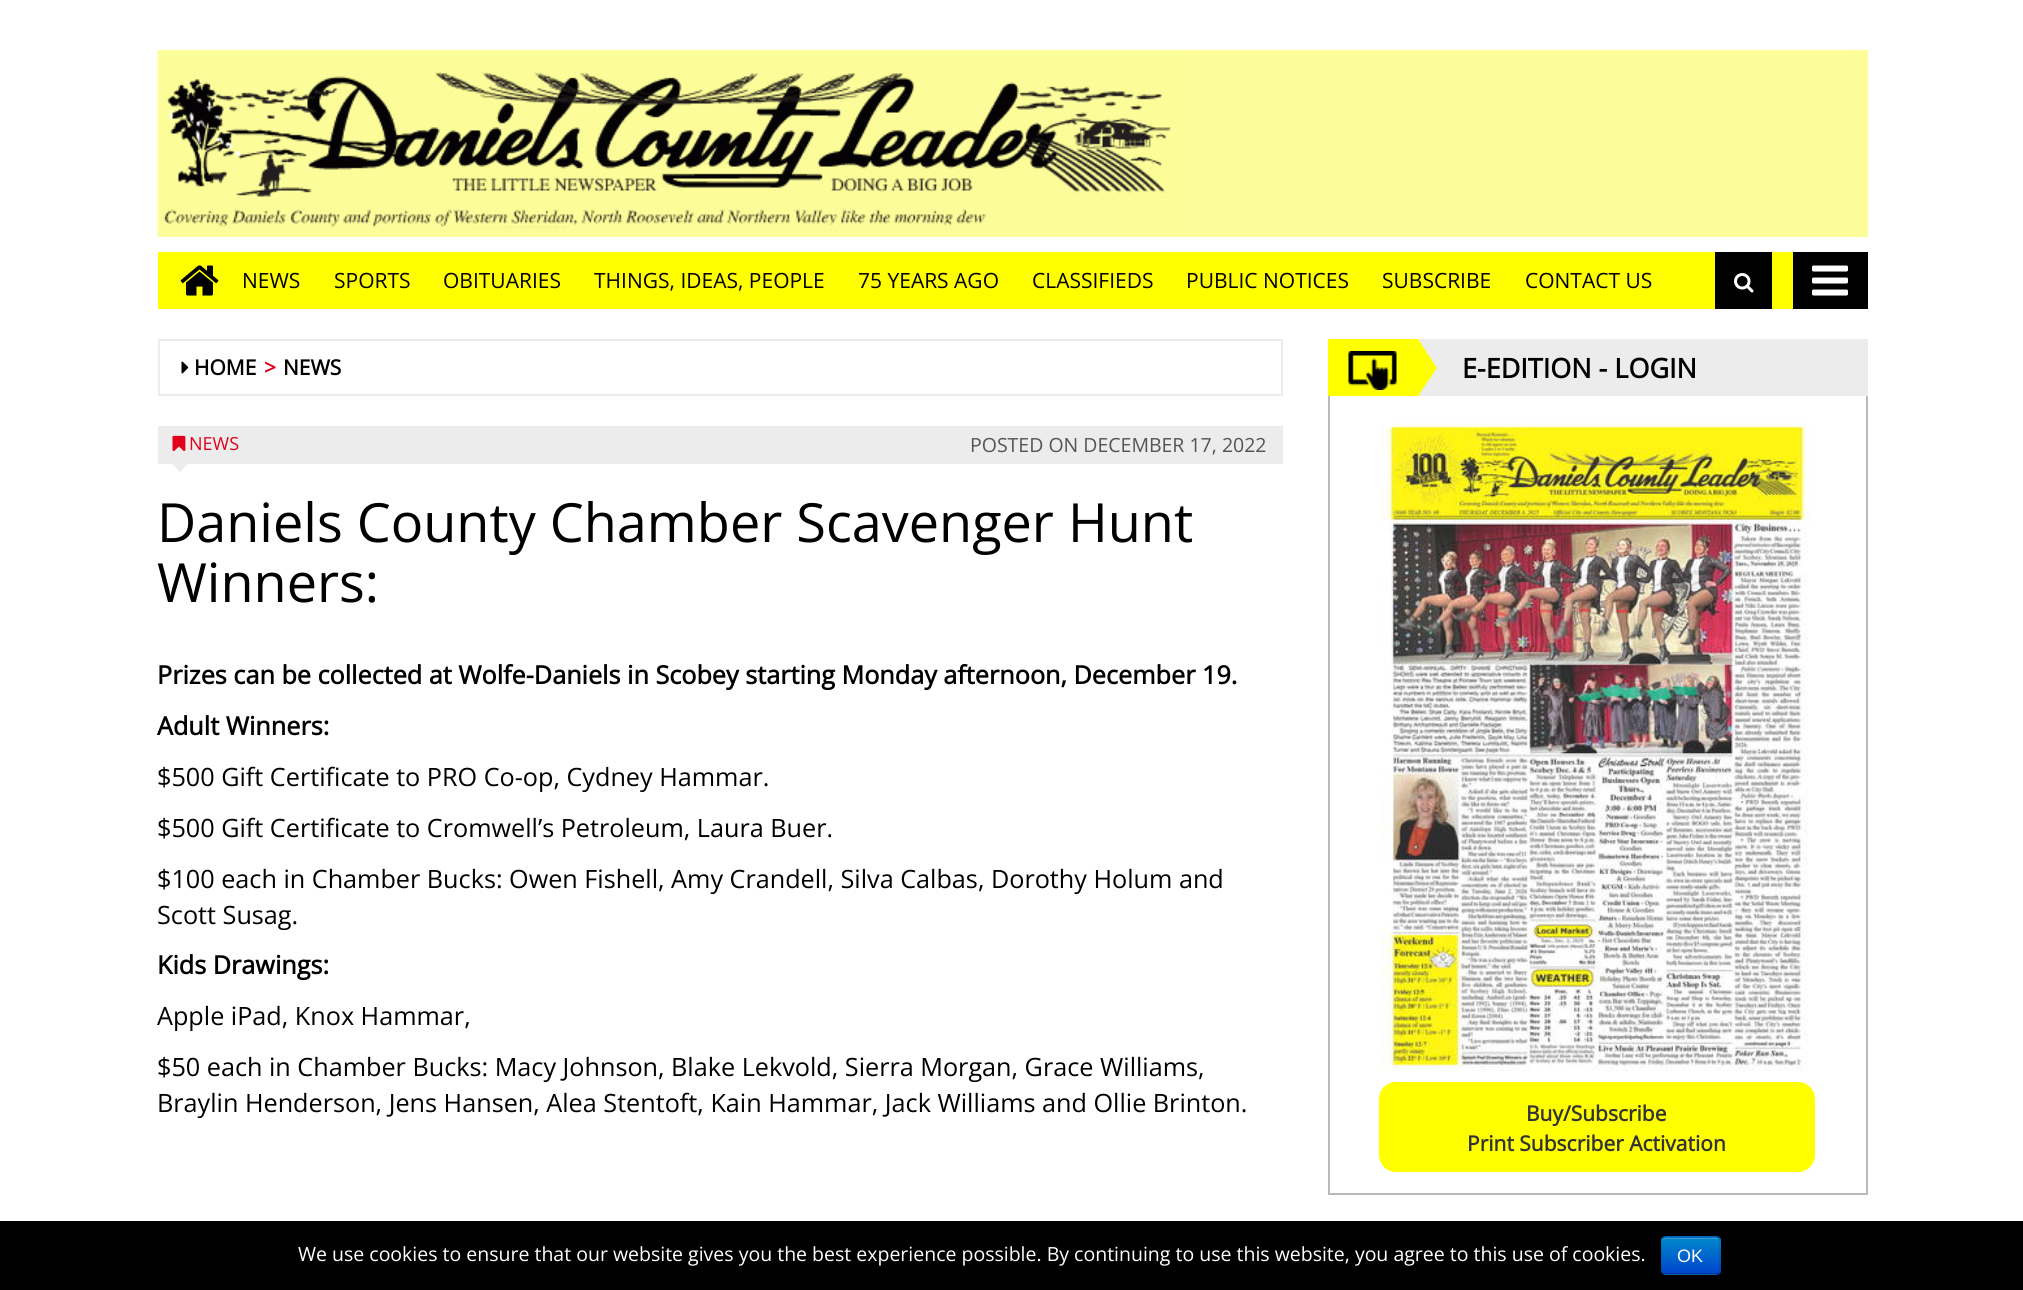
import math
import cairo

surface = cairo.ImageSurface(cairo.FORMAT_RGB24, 2023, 1290)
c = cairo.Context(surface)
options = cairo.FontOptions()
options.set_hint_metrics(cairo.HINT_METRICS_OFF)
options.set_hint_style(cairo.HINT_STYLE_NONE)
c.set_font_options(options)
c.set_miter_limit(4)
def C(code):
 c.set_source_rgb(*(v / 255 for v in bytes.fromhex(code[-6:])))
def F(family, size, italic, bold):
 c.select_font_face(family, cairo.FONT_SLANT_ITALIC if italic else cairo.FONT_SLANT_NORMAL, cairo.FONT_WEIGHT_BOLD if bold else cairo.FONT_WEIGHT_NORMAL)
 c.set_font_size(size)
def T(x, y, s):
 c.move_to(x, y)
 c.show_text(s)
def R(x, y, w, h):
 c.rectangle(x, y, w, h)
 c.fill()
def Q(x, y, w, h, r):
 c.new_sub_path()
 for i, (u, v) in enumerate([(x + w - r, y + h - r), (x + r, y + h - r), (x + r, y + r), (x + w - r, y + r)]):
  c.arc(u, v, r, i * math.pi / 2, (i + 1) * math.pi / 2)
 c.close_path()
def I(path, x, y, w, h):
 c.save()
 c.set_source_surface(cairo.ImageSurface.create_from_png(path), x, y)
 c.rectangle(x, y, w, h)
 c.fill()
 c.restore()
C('ffffff')
c.paint()
C('fcfd9a')
R(158,50,1710,187)
I('1.png',157,52,1031,184)
C('ffff00')
R(158,252,1635,57)
I('2.png',180,265,39,31)
F('Open Sans',21,0,0)
C('000000')
T(242,288,'NEWS')
T(334,288,'SPORTS')
T(443,288,'OBITUARIES')
T(594,288,'THINGS, IDEAS, PEOPLE')
T(858,288,'75 YEARS AGO')
T(1032,288,'CLASSIFIEDS')
T(1186,288,'PUBLIC NOTICES')
T(1382,288,'SUBSCRIBE')
T(1525,288,'CONTACT US')
R(1715,252,57,57)
I('3.png',1734,273,20,20)
R(1793,252,75,57)
I('4.png',1812,265,36,31)
c.rectangle(159,340,1123,55)
C('ececec')
c.stroke()
I('5.png',181,361,8,13)
F('Open Sans',21,0,1)
C('000000')
T(194,375,'HOME')
C('e2001a')
T(264,375,'>')
C('000000')
T(283,375,'NEWS')
C('ececec')
R(158,426,1125,38)
I('6.png',172,435,14,16)
F('Open Sans',18,0,0)
C('e2001a')
T(189,450,'NEWS')
F('Open Sans',19.5,0,0)
C('545454')
T(970,452,'POSTED ON DECEMBER 17, 2022')
C('ececec')
c.new_path()
c.move_to(172.5,463.5)
c.line_to(187.5,463.5)
c.line_to(180,472.5)
c.close_path()
c.fill()
F('Open Sans',54,0,0)
C('000000')
T(157,542,'Daniels County Chamber Scavenger Hunt')
T(157,602,'Winners:')
F('Open Sans',25.2,0,1)
T(157,684,'Prizes can be collected at Wolfe-Daniels in Scobey starting Monday afternoon, December 19.')
T(157,735,'Adult Winners:')
F('Open Sans',25.2,0,0)
T(157,786,'$500 Gift Certificate to PRO Co-op, Cydney Hammar.')
T(157,837,'$500 Gift Certificate to Cromwell’s Petroleum, Laura Buer.')
T(157,888,'$100 each in Chamber Bucks: Owen Fishell, Amy Crandell, Silva Calbas, Dorothy Holum and')
T(157,924,'Scott Susag.')
F('Open Sans',25.2,0,1)
T(157,974,'Kids Drawings:')
F('Open Sans',25.2,0,0)
T(157,1025,'Apple iPad, Knox Hammar,')
T(157,1076,'$50 each in Chamber Bucks: Macy Johnson, Blake Lekvold, Sierra Morgan, Grace Williams,')
T(157,1112,'Braylin Henderson, Jens Hansen, Alea Stentoft, Kain Hammar, Jack Williams and Ollie Brinton.')
C('ececec')
R(1418,339,450,57)
C('ffff00')
R(1328,339,90,57)
I('7.png',1348,351,49,39)
c.new_path()
c.move_to(1418,396)
c.line_to(1418,339)
c.line_to(1437,368)
c.close_path()
c.fill()
F('Open Sans',27,0,1)
C('000000')
T(1462,378,'E-EDITION - LOGIN')
C('b9b9b9')
R(1866,396,2,798)
R(1328,1193,540,2)
R(1328,396,2,798)
I('8.png',1381,417,431,654)
C('ffff00')
Q(1379,1082,436,90,17)
c.fill()
F('Open Sans',21,0,1)
C('333333')
T(1526,1121,'Buy/Subscribe')
T(1467,1151,'Print Subscriber Activation')
C('000000')
R(0,1221,2023,69)
F('Open Sans',19.5,0,0)
C('ffffff')
T(298,1261,'We use cookies to ensure that our website gives you the best experience possible. By continuing to use this website, you agree to this use of cookies.')
C('006dcc')
Q(1661,1236,60,39,5)
c.fill()
c.save()
Q(1661,1236,60,39,5)
c.clip()
gradient = cairo.LinearGradient(1691,1238,1691,1274)
gradient.add_color_stop_rgba(0,0,0.533,0.8,1)
gradient.add_color_stop_rgba(1,0,0.267,0.8,1)
c.set_source(gradient)
R(1661,1238,60,36)
c.restore()
C('339fd6')
c.new_path()
c.move_to(1665,1239)
c.line_to(1716,1239)
c.curve_to(1718,1239,1719,1240,1719,1242)
c.curve_to(1719,1236,1712,1238,1708,1238)
c.line_to(1674,1238)
c.curve_to(1669,1238,1662,1236,1662,1242)
c.curve_to(1662,1240,1663,1239,1665,1239)
c.close_path()
c.fill()
c.new_path()
c.move_to(1718.5,1273)
c.line_to(1716.5,1274)
c.line_to(1664.5,1274)
c.line_to(1662.5,1273)
c.set_source_rgba(0,0,0,0.25)
c.set_line_width(1.5)
c.stroke()
c.new_path()
c.move_to(1662.5,1273)
c.curve_to(1661.5,1272.5,1661,1271.5,1661,1270.5)
c.line_to(1661,1240.5)
c.curve_to(1661,1239.5,1661.5,1238.5,1662.5,1238)
c.curve_to(1663,1237,1664,1237,1665,1237)
c.line_to(1716,1237)
c.curve_to(1717,1237,1718,1237,1718.5,1238)
c.curve_to(1719.5,1238.5,1720,1239.5,1720,1240.5)
c.line_to(1720,1270.5)
c.curve_to(1720,1271.5,1719.5,1272.5,1718.5,1273)
c.set_source_rgba(0,0,0,0.1)
c.stroke()
F('Liberation Sans',18,0,0)
C('ffffff')
T(1677,1262,'OK')
surface.write_to_png('o.png')
